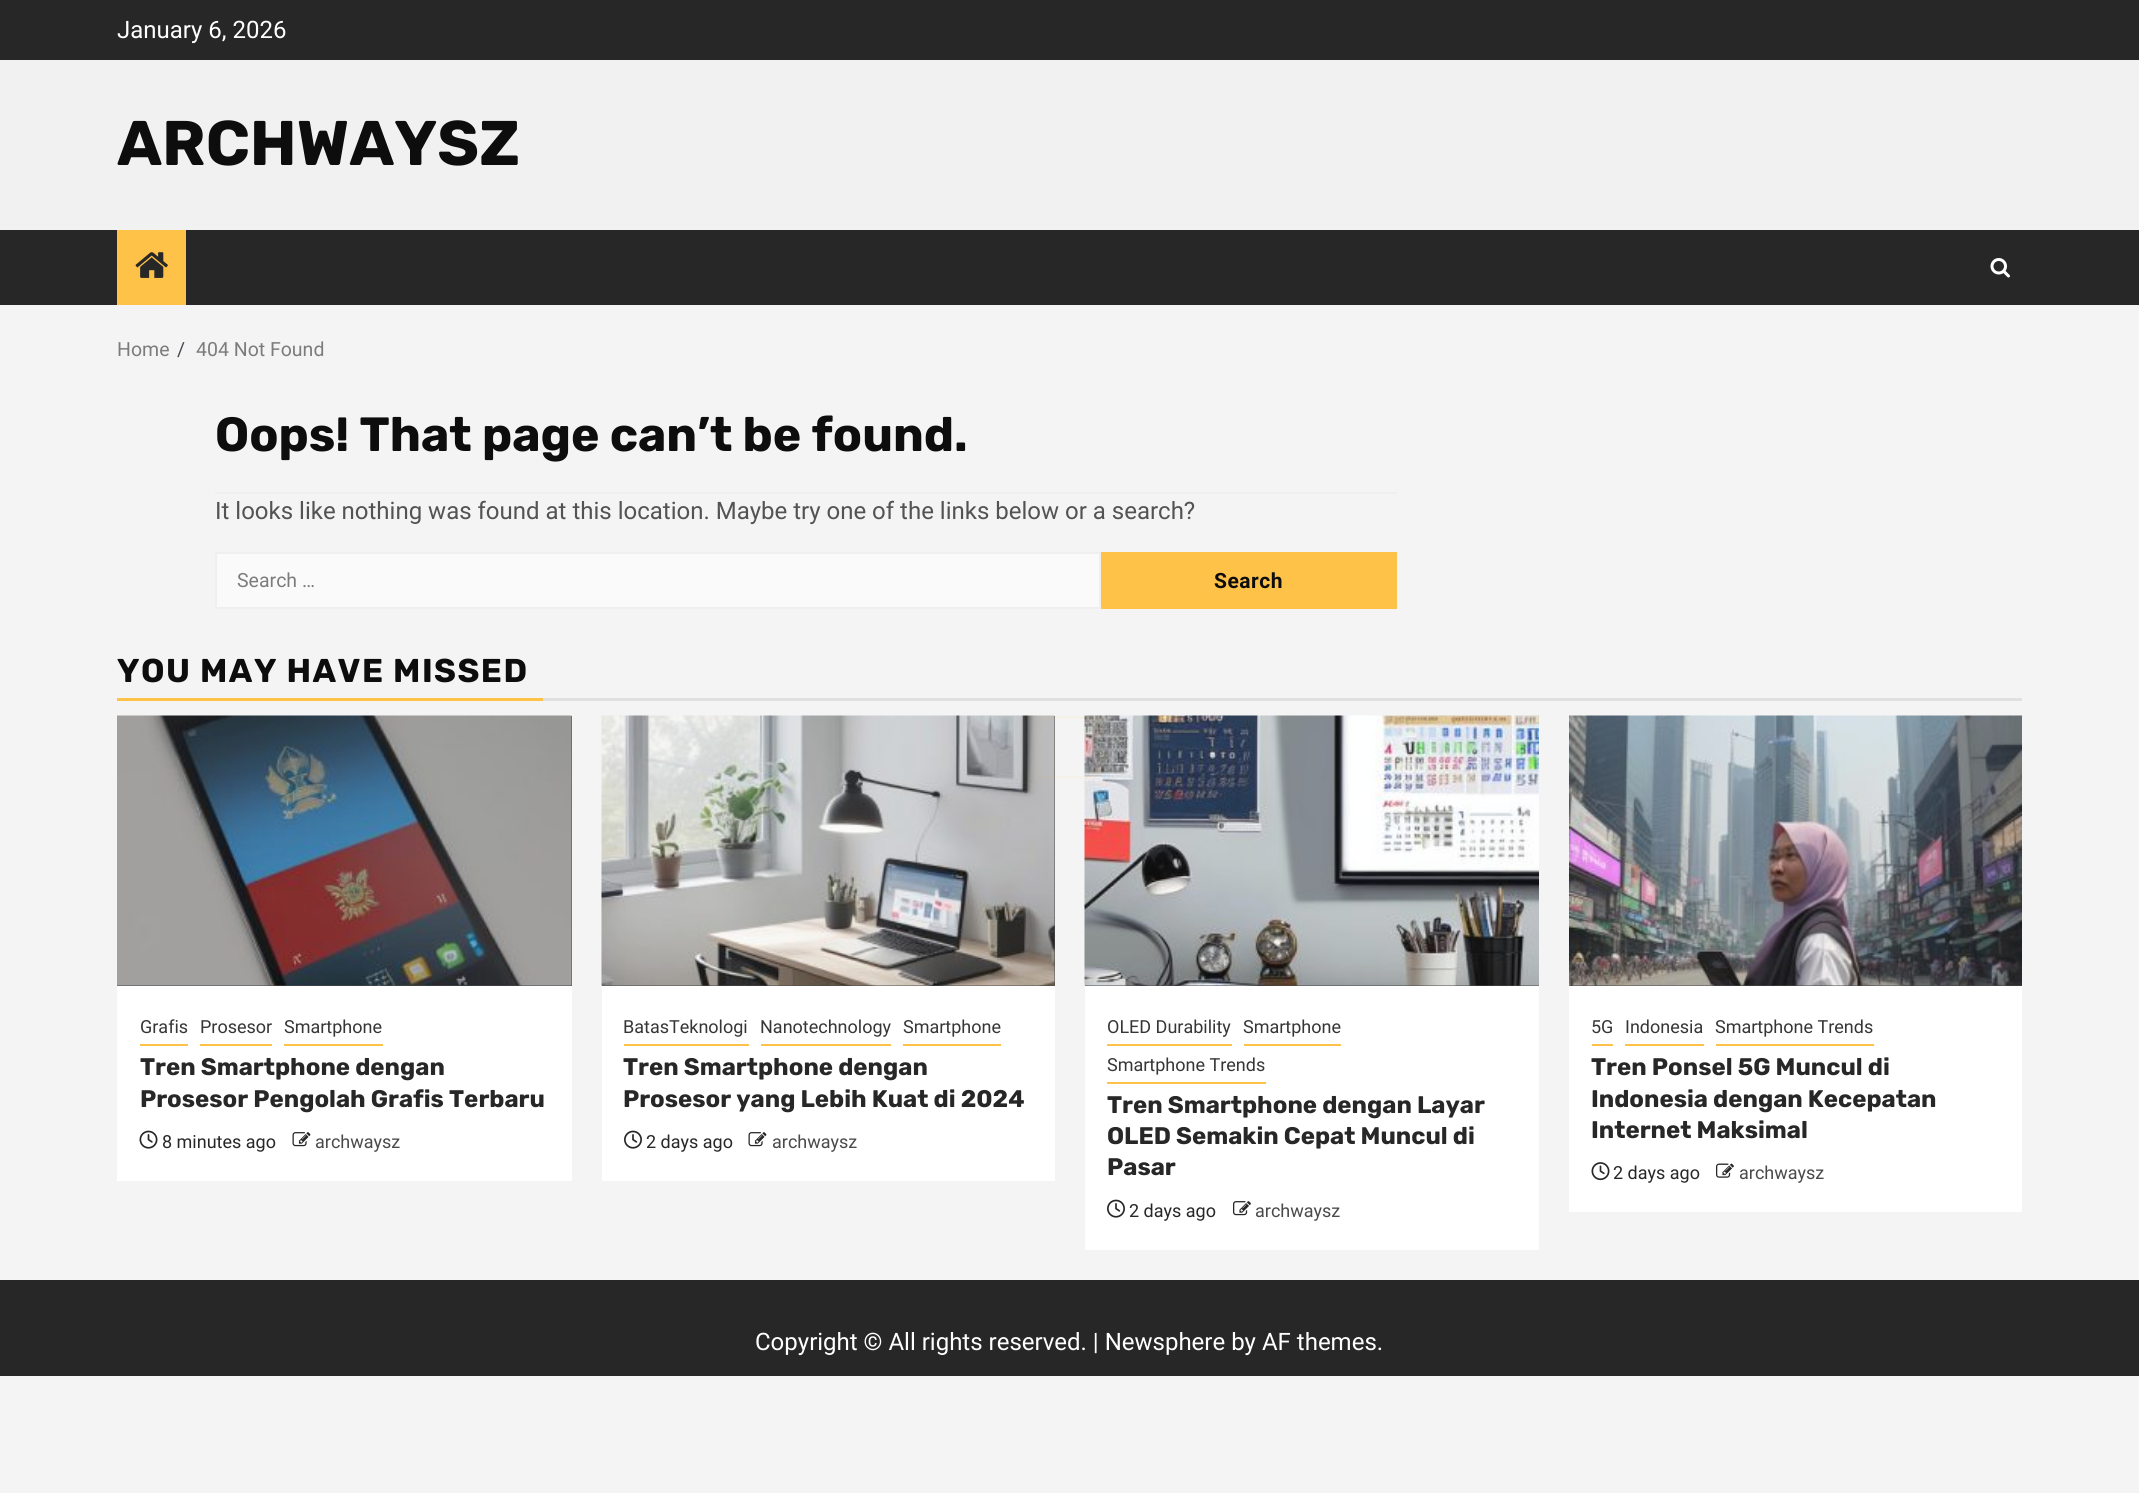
import math
import cairo

surface = cairo.ImageSurface(cairo.FORMAT_RGB24, 2139, 1493)
c = cairo.Context(surface)
options = cairo.FontOptions()
options.set_hint_metrics(cairo.HINT_METRICS_OFF)
options.set_hint_style(cairo.HINT_STYLE_NONE)
c.set_font_options(options)
c.set_miter_limit(4)
def C(code):
 c.set_source_rgb(*(v / 255 for v in bytes.fromhex(code[-6:])))
def F(family, size, italic, bold):
 c.select_font_face(family, cairo.FONT_SLANT_ITALIC if italic else cairo.FONT_SLANT_NORMAL, cairo.FONT_WEIGHT_BOLD if bold else cairo.FONT_WEIGHT_NORMAL)
 c.set_font_size(size)
def T(x, y, s):
 c.move_to(x, y)
 c.show_text(s)
def L(x, y, s, letter, word):
 c.move_to(x, y)
 for ch in s:
  c.show_text(ch)
  c.rel_move_to(letter + word * (ch == ' '), 0)
def R(x, y, w, h):
 c.rectangle(x, y, w, h)
 c.fill()
def I(path, x, y, w, h):
 c.save()
 c.set_source_surface(cairo.ImageSurface.create_from_png(path), x, y)
 c.rectangle(x, y, w, h)
 c.fill()
 c.restore()
C('f4f4f4')
c.paint()
C('f1f1f1')
R(0,60,2139,170)
C('272727')
R(0,0,2139,60)
F('Roboto',24,0,0)
C('ffffff')
T(117,38,'January 6, 2026')
F('Rubik',63,0,1)
C('0d0d0d')
T(117,165,'ARCHWAYSZ')
C('272727')
R(0,230,2139,75)
C('ffc249')
R(117,230,69,75)
I('1.png',135,252,33,26)
I('2.png',1990,258,20,20)
F('Roboto',19.5,0,0)
C('7c7c7c')
T(117,356,'Home')
C('43484f')
T(177,356,'/')
C('7c7c7c')
T(196,356,'404 Not Found')
C('efefef')
R(215,492,1182,2)
F('Rubik',48,0,1)
C('0d0d0d')
T(215,451,'Oops! That page can’t be found.')
F('Roboto',24,0,0)
C('535353')
T(215,519,'It looks like nothing was found at this location. Maybe try one of the links below or a search?')
C('fafafa')
c.rectangle(216,553,884,55)
c.fill_preserve()
C('efefef')
c.stroke()
F('Roboto',19.5,0,0)
C('7c7c7c')
T(237,587,'Search …')
C('ffc249')
R(1101,552,296,57)
F('Roboto',21,0,1)
C('0d0d0d')
L(1214,588,'Search',.5,0)
C('ffc249')
R(117,698,426,3)
F('Rubik',33,0,1)
C('0d0d0d')
L(117,682,'YOU MAY HAVE MISSED',1.5,0)
C('e0e0e0')
R(543,698,1479,3)
C('ffffff')
R(117,986,455,195)
C('4a4a4a')
R(117,716,455,270)
I('3.png',117,715,455,271)
C('ffc249')
R(140,1044,48,2)
F('Roboto',18,0,0)
C('363636')
T(140,1033,'Grafis')
C('ffc249')
R(200,1044,72,2)
C('363636')
T(200,1033,'Prosesor')
C('ffc249')
R(284,1044,99,2)
C('363636')
T(284,1033,'Smartphone')
F('Rubik',24,0,1)
C('272727')
T(140,1075,'Tren Smartphone dengan')
T(140,1107,'Prosesor Pengolah Grafis Terbaru')
I('4.png',139,1130,19,19)
F('Roboto',18,0,0)
T(162,1148,'8 minutes ago')
I('5.png',292,1132,19,15)
C('4a4a4a')
T(315,1148,'archwaysz')
C('ffffff')
R(602,986,453,195)
C('4a4a4a')
R(602,716,453,270)
I('6.png',601,715,454,271)
C('ffc249')
R(624,1044,125,2)
C('363636')
T(623,1033,'BatasTeknologi')
C('ffc249')
R(761,1044,130,2)
C('363636')
T(760,1033,'Nanotechnology')
C('ffc249')
R(903,1044,98,2)
C('363636')
T(903,1033,'Smartphone')
F('Rubik',24,0,1)
C('272727')
T(623,1075,'Tren Smartphone dengan')
T(623,1107,'Prosesor yang Lebih Kuat di 2024')
I('7.png',624,1130,18,19)
F('Roboto',18,0,0)
T(646,1148,'2 days ago')
I('5.png',748,1132,19,15)
C('4a4a4a')
T(772,1148,'archwaysz')
C('ffffff')
R(1085,986,454,264)
C('4a4a4a')
R(1085,985,454,1)
I('8.png',1084,715,455,271)
C('ffc249')
R(1107,1044,125,2)
C('363636')
T(1107,1033,'OLED Durability')
C('ffc249')
R(1244,1044,97,2)
C('363636')
T(1243,1033,'Smartphone')
C('ffc249')
R(1107,1082,159,2)
C('363636')
T(1107,1071,'Smartphone Trends')
F('Rubik',24,0,1)
C('272727')
T(1107,1113,'Tren Smartphone dengan Layar')
T(1107,1144,'OLED Semakin Cepat Muncul di')
T(1107,1175,'Pasar')
I('7.png',1107,1199,18,19)
F('Roboto',18,0,0)
T(1129,1217,'2 days ago')
I('9.png',1233,1201,18,15)
C('4a4a4a')
T(1255,1217,'archwaysz')
C('ffffff')
R(1569,986,453,226)
C('4a4a4a')
R(1569,985,453,1)
I('10.png',1569,715,453,271)
C('ffc249')
R(1592,1044,21,2)
C('363636')
T(1591,1033,'5G')
C('ffc249')
R(1625,1044,79,2)
C('363636')
T(1625,1033,'Indonesia')
C('ffc249')
R(1716,1044,158,2)
C('363636')
T(1715,1033,'Smartphone Trends')
F('Rubik',24,0,1)
C('272727')
T(1591,1075,'Tren Ponsel 5G Muncul di')
T(1591,1107,'Indonesia dengan Kecepatan')
T(1591,1138,'Internet Maksimal')
I('11.png',1591,1162,19,19)
F('Roboto',18,0,0)
T(1613,1179,'2 days ago')
I('12.png',1716,1163,18,15)
C('4a4a4a')
T(1739,1179,'archwaysz')
C('272727')
R(0,1280,2139,96)
F('Roboto',24,0,0)
C('ffffff')
T(755,1350,'Copyright © All rights reserved. | Newsphere by AF themes.')
c.rectangle(1039.5,717.5,60,60)
c.set_source_rgba(1,0.749,0.247,0.05)
c.set_line_width(3)
c.stroke()
surface.write_to_png('o.png')
